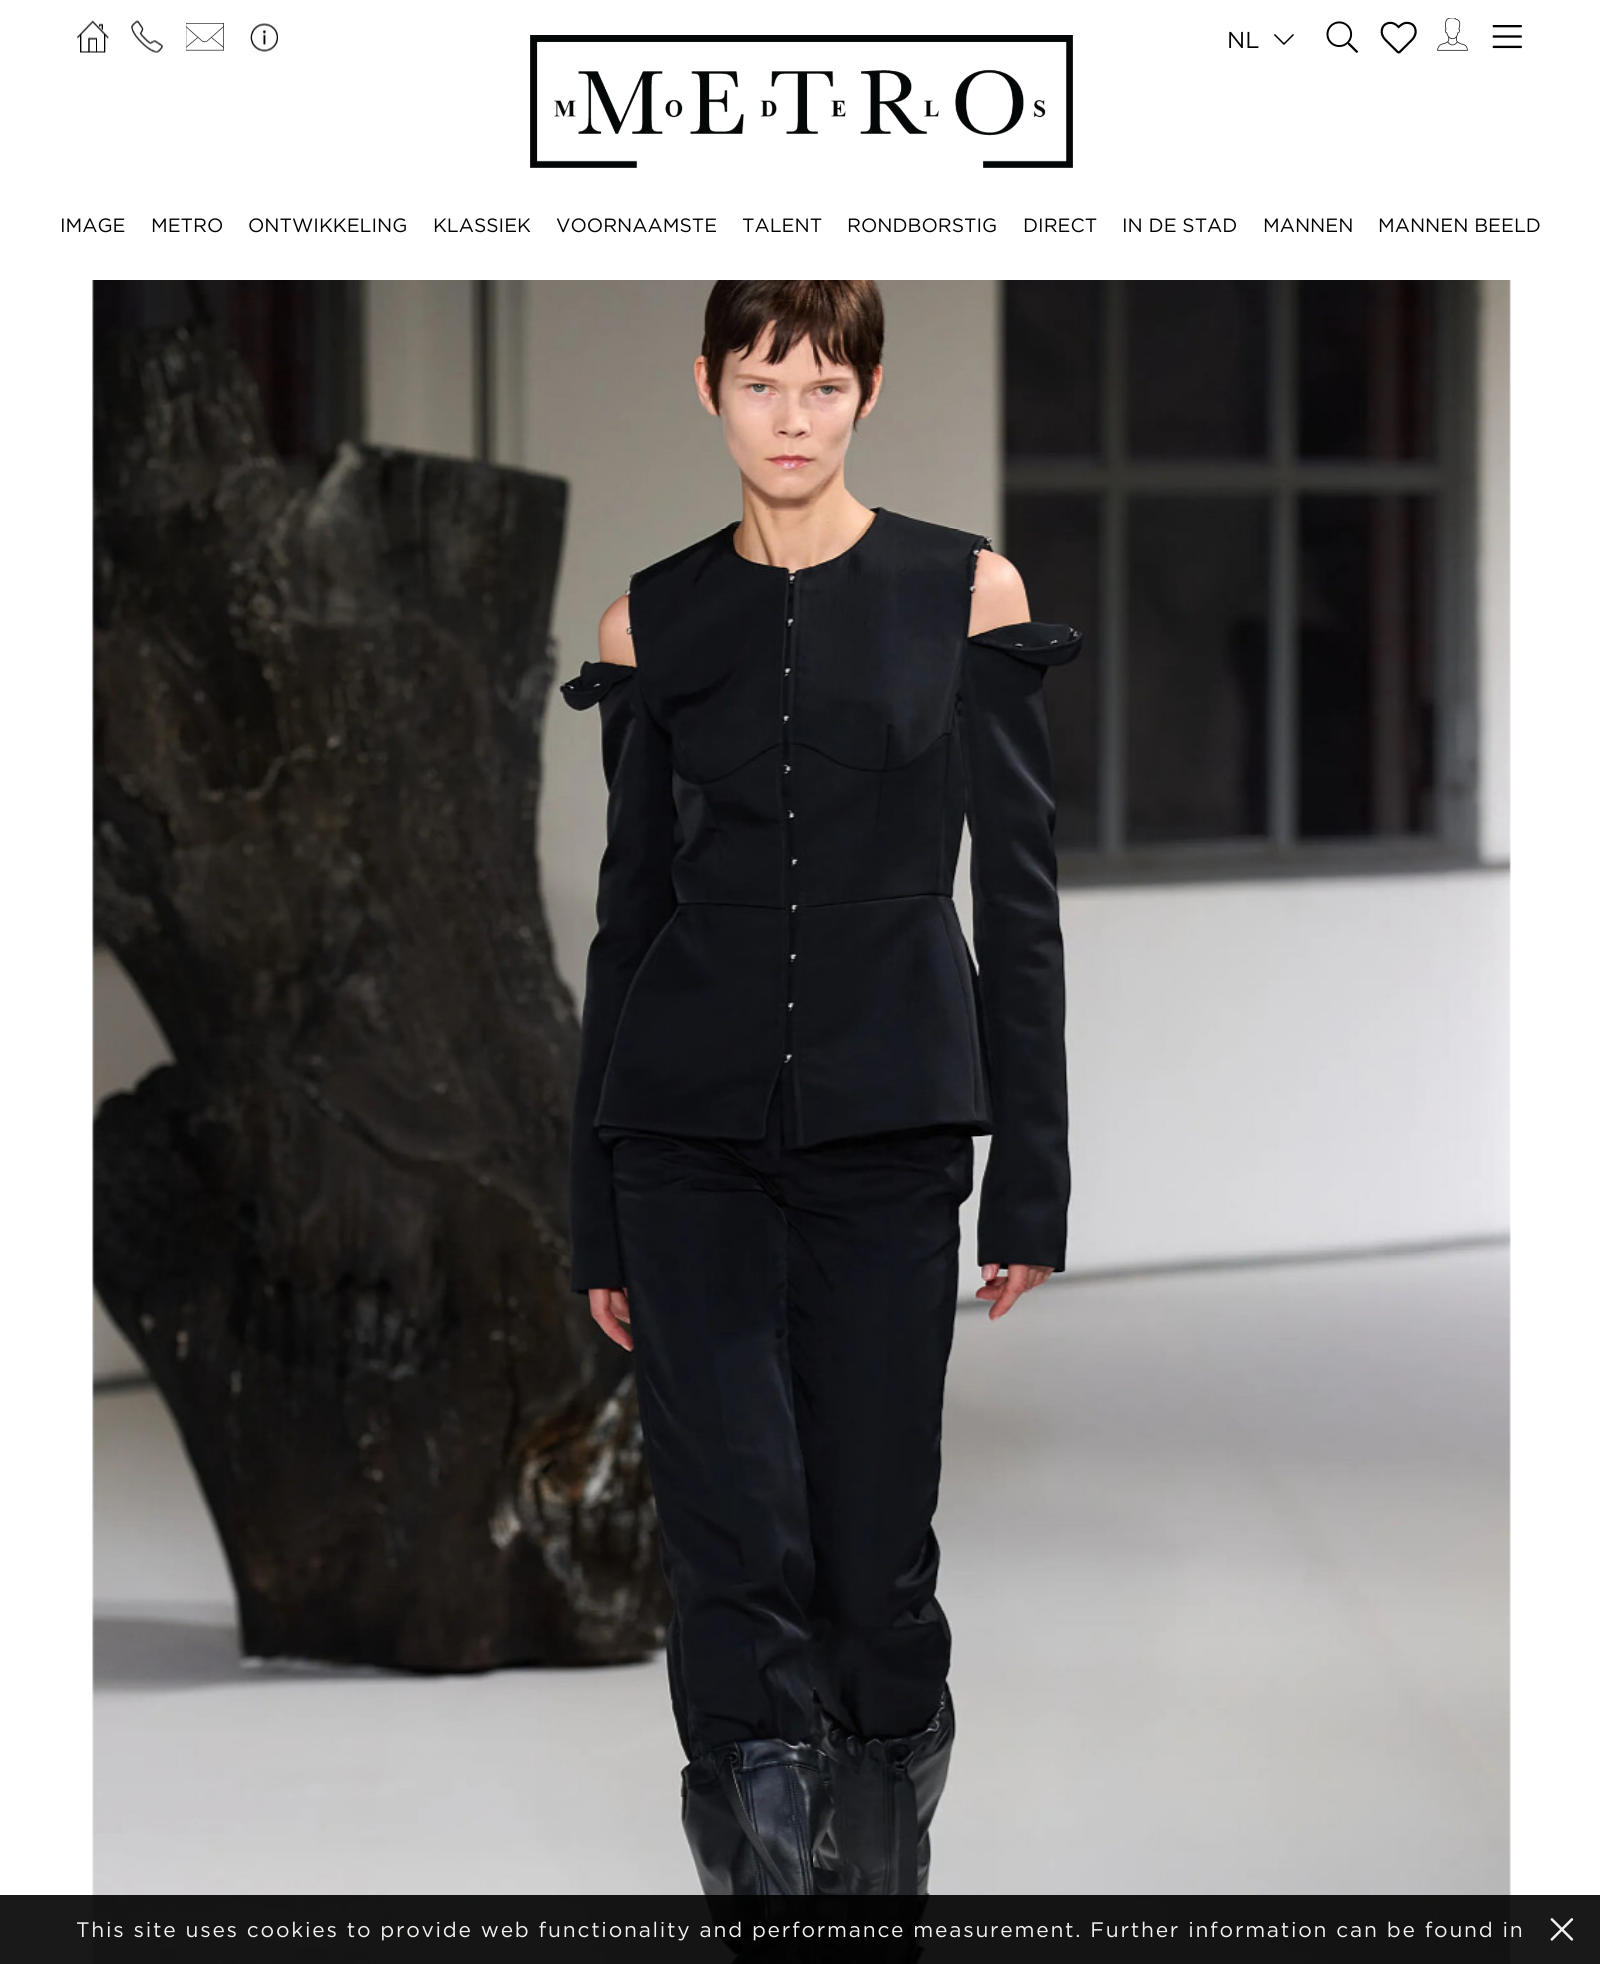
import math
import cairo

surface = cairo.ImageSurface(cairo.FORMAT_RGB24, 1600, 1964)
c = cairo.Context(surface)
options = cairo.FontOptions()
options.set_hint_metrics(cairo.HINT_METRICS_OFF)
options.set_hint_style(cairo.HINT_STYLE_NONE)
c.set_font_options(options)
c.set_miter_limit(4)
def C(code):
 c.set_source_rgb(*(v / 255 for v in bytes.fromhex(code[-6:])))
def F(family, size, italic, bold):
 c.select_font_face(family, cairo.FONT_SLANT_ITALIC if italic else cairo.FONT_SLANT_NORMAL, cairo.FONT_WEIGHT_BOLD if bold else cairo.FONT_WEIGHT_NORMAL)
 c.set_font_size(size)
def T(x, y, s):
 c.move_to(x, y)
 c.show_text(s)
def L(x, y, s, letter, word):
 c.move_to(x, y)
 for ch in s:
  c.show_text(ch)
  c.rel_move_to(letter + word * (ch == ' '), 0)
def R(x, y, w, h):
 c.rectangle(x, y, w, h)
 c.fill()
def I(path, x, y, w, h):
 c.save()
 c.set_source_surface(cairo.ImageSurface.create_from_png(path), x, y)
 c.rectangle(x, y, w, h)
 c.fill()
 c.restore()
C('ffffff')
c.paint()
I('1.png',77,20,32,33)
I('2.png',131,20,32,33)
I('3.png',186,23,38,28)
I('4.png',250,23,28,29)
I('5.png',530,35,543,133)
F('Gotham',23,0,0)
C('000000')
T(1227,48,'NL')
I('6.png',1274,34,20,11)
I('7.png',1326,21,32,32)
I('8.png',1380,21,37,33)
I('9.png',1437,18,31,33)
I('10.png',1492,25,30,24)
F('Gotham',19.25,0,0)
T(60,232,'IMAGE')
T(151,232,'METRO')
T(248,232,'ONTWIKKELING')
T(433,232,'KLASSIEK')
T(556,232,'VOORNAAMSTE')
T(742,232,'TALENT')
T(847,232,'RONDBORSTIG')
T(1023,232,'DIRECT')
T(1122,232,'IN DE STAD')
T(1263,232,'MANNEN')
T(1378,232,'MANNEN BEELD')
I('11.png',92,280,1419,1684)
c.set_source_rgba(0,0,0,0.9)
R(0,1895,1600,69)
F('Gotham',21,0,0)
C('f2f2f2')
L(76,1937,'This site uses cookies to provide web functionality and performance measurement. Further information can be found in',1.75,0)
I('12.png',1550,1918,24,23)
surface.write_to_png('o.png')
